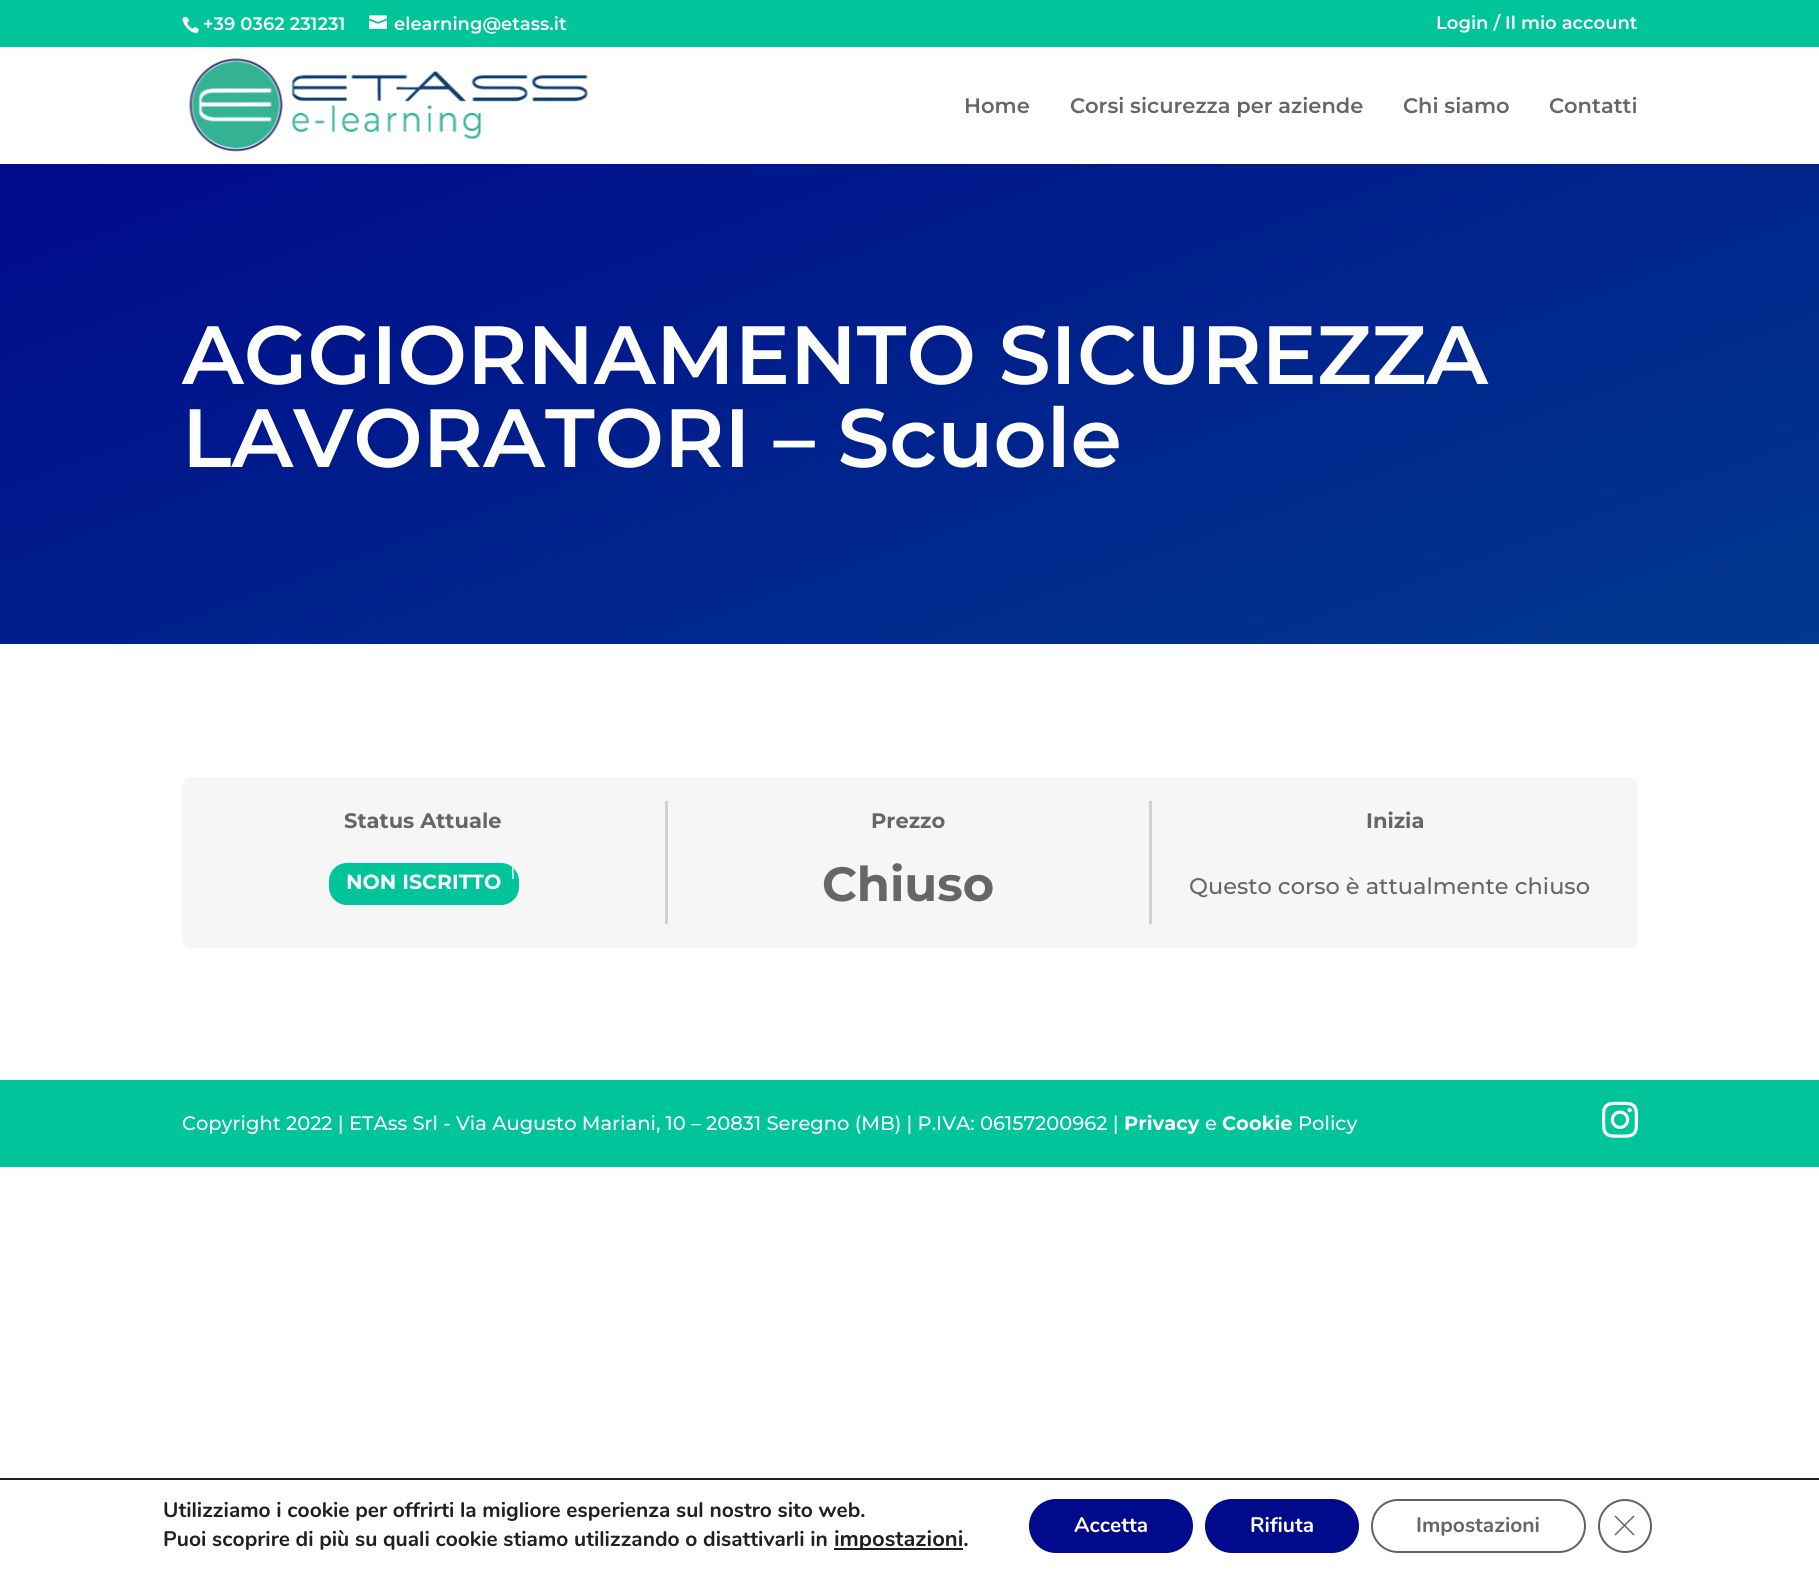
import math
import cairo

surface = cairo.ImageSurface(cairo.FORMAT_RGB24, 1819, 1571)
c = cairo.Context(surface)
options = cairo.FontOptions()
options.set_hint_metrics(cairo.HINT_METRICS_OFF)
options.set_hint_style(cairo.HINT_STYLE_NONE)
c.set_font_options(options)
c.set_miter_limit(4)
def C(code):
 c.set_source_rgb(*(v / 255 for v in bytes.fromhex(code[-6:])))
def F(family, size, italic, bold):
 c.select_font_face(family, cairo.FONT_SLANT_ITALIC if italic else cairo.FONT_SLANT_NORMAL, cairo.FONT_WEIGHT_BOLD if bold else cairo.FONT_WEIGHT_NORMAL)
 c.set_font_size(size)
def T(x, y, s):
 c.move_to(x, y)
 c.show_text(s)
def R(x, y, w, h):
 c.rectangle(x, y, w, h)
 c.fill()
def Q(x, y, w, h, r):
 c.new_sub_path()
 for i, (u, v) in enumerate([(x + w - r, y + h - r), (x + r, y + h - r), (x + r, y + r), (x + w - r, y + r)]):
  c.arc(u, v, r, i * math.pi / 2, (i + 1) * math.pi / 2)
 c.close_path()
def I(path, x, y, w, h):
 c.save()
 c.set_source_surface(cairo.ImageSurface.create_from_png(path), x, y)
 c.rectangle(x, y, w, h)
 c.fill()
 c.restore()
C('ffffff')
c.paint()
C('00c49a')
R(0,0,1819,47)
I('1.png',182,16,17,18)
F('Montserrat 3 Thin',18,0,0)
C('ffffff')
T(203,30,'+39 0362 231231')
I('2.png',369,15,18,14)
T(394,30,'elearning@etass.it')
T(1436,29,'Login / Il mio account')
gradient = cairo.LinearGradient(726,-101,1093,908)
gradient.add_color_stop_rgba(0,0,0.039,0.545,1)
gradient.add_color_stop_rgba(1,0,0.224,0.557,1)
c.set_source(gradient)
R(0,164,1819,480)
c.set_source_rgba(0,0,0,0.1)
c.new_path()
c.move_to(0,164)
c.line_to(0,165)
c.line_to(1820,165)
c.line_to(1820,48)
c.line_to(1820,164)
c.close_path()
c.fill()
I('3.png',188,58,400,94)
F('Montserrat 3 Thin',21,0,0)
C('666666')
T(964,113,'Home')
T(1070,113,'Corsi sicurezza per aziende')
T(1403,113,'Chi siamo')
T(1549,113,'Contatti')
F('Montserrat 3 Thin',82.5,0,0)
C('ffffff')
T(182,384,'AGGIORNAMENTO SICUREZZA')
T(182,467,'LAVORATORI – Scuole')
C('f6f6f6')
Q(182,777,1456,171,9)
c.fill()
C('d1d1d1')
R(665,801,3,123)
F('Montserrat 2 Thin',21,0,0)
C('666666')
T(344,828,'Status Attuale')
C('00c49a')
Q(329,863,190,42,18)
c.fill()
F('Montserrat 2 Thin',20.5,0,0)
C('ffffff')
T(346,889,'NON ISCRITTO')
C('d1d1d1')
R(1149,801,3,123)
F('Montserrat 2 Thin',21,0,0)
C('666666')
T(871,828,'Prezzo')
F('Montserrat 2 Thin',48,0,0)
T(822,901,'Chiuso')
F('Montserrat 2 Thin',21,0,0)
T(1366,828,'Inizia')
F('Montserrat Thin',22.5,0,0)
T(1189,894,'Questo corso è attualmente chiuso')
C('00c49a')
R(0,1080,1819,87)
F('Montserrat Thin',19.5,0,0)
C('ffffff')
T(182,1130,'Copyright 2022 | ETAss Srl - Via Augusto Mariani, 10 – 20831 Seregno (MB) | P.IVA: 06157200962 |')
F('Montserrat 2 Thin',19.5,0,0)
T(1124,1130,'Privacy')
F('Montserrat Thin',19.5,0,0)
T(1205,1130,'e')
F('Montserrat 2 Thin',19.5,0,0)
T(1222,1130,'Cookie')
F('Montserrat Thin',19.5,0,0)
T(1298,1130,'Policy')
I('4.png',1602,1101,36,37)
F('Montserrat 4 Thin',22,0,0)
C('ecf4f2')
T(510,879,'l')
C('202020')
R(0,1478,1819,2)
F('Nunito',21,0,1)
T(163,1517,'Utilizziamo i cookie per offrirti la migliore esperienza sul nostro sito web.')
T(163,1546,'Puoi scoprire di più su quali cookie stiamo utilizzando o disattivarli in')
R(834,1548,129,2)
F('Nunito',22,0,1)
T(834,1546,'impostazioni.')
C('000a8b')
Q(1029,1499,164,54,27)
c.fill()
F('Nunito',21,0,1)
C('ffffff')
T(1074,1532,'Accetta')
C('000a8b')
Q(1205,1499,154,54,27)
c.fill()
C('ffffff')
T(1250,1532,'Rifiuta')
Q(1372,1500,213,52,26)
C('636363')
c.stroke()
C('666666')
T(1416,1532,'Impostazioni')
c.new_path()
c.arc(1625,1526,26,0,2 * math.pi)
C('626262')
c.stroke()
c.new_path()
c.move_to(1633.5,1515.5)
c.line_to(1634.5,1516.5)
c.line_to(1615.5,1535.5)
c.line_to(1614.5,1534.5)
c.close_path()
c.fill()
c.new_path()
c.move_to(1614.5,1516.5)
c.line_to(1615.5,1515.5)
c.line_to(1634.5,1534.5)
c.line_to(1633.5,1535.5)
c.close_path()
c.fill()
surface.write_to_png('o.png')
